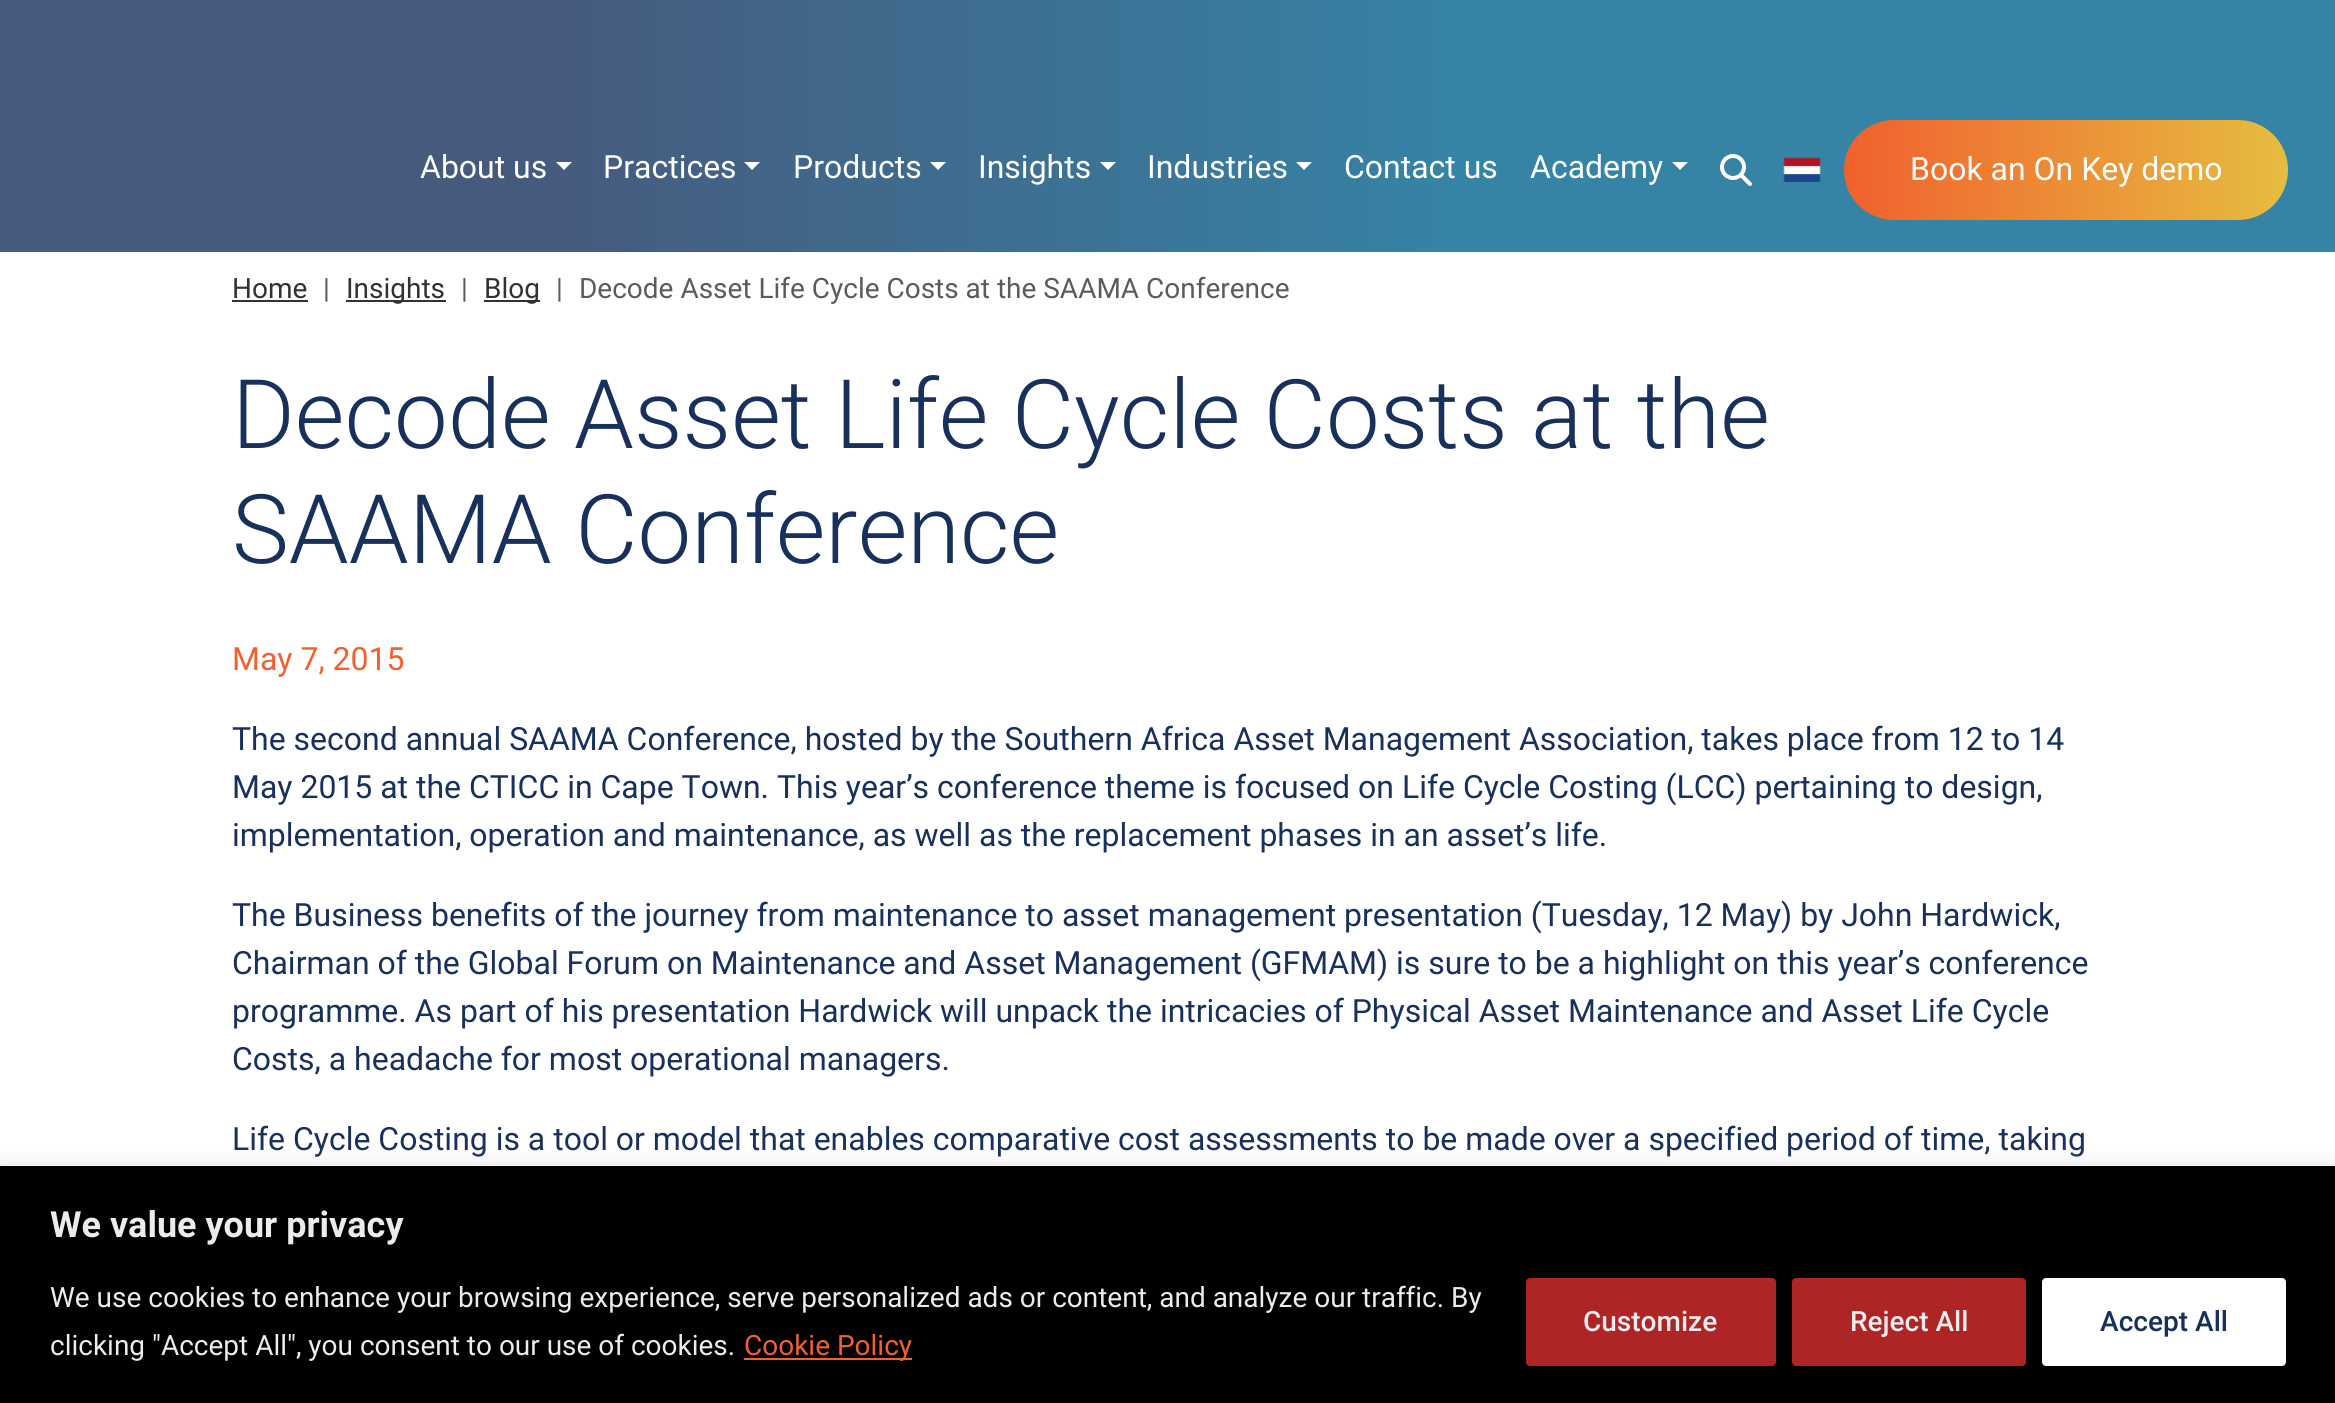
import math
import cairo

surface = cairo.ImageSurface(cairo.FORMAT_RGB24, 2335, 1403)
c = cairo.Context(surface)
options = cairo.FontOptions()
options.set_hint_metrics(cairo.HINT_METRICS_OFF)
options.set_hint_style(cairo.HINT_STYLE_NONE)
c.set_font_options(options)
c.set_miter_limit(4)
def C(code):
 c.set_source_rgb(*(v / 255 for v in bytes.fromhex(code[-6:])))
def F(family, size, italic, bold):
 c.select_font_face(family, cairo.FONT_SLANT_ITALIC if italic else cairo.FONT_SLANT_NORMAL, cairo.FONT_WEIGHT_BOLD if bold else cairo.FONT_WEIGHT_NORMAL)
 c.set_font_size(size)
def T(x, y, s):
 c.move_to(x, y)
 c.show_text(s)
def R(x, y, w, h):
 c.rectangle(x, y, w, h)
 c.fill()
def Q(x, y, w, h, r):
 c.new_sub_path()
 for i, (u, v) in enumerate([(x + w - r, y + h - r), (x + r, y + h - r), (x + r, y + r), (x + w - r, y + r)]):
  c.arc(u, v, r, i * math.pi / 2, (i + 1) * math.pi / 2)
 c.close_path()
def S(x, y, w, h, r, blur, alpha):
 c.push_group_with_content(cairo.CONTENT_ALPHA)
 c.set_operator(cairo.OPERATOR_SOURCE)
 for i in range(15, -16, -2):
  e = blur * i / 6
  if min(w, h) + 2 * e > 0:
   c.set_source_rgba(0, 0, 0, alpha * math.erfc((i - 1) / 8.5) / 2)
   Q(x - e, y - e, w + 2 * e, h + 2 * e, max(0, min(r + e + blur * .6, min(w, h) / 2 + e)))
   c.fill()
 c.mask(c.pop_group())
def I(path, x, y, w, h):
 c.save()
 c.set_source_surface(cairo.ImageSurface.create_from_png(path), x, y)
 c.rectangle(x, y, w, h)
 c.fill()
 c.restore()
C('ffffff')
c.paint()
gradient = cairo.LinearGradient(0,163,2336,163)
gradient.add_color_stop_rgba(0,0.275,0.353,0.49,1)
gradient.add_color_stop_rgba(.23,0.275,0.353,0.49,1)
gradient.add_color_stop_rgba(.63,0.208,0.518,0.651,1)
c.set_source(gradient)
R(0,0,2335,252)
F('Roboto',32,0,0)
C('ffffff')
T(420,178,'About us')
c.new_path()
c.move_to(556,162)
c.line_to(572,162)
c.line_to(564,170)
c.close_path()
c.fill()
T(603,178,'Practices')
c.new_path()
c.move_to(744,162)
c.line_to(760,162)
c.line_to(752,170)
c.close_path()
c.fill()
T(793,178,'Products')
c.new_path()
c.move_to(930,162)
c.line_to(946,162)
c.line_to(938,170)
c.close_path()
c.fill()
T(978,178,'Insights')
c.new_path()
c.move_to(1100,162)
c.line_to(1116,162)
c.line_to(1108,170)
c.close_path()
c.fill()
T(1147,178,'Industries')
c.new_path()
c.move_to(1296,162)
c.line_to(1312,162)
c.line_to(1304,170)
c.close_path()
c.fill()
T(1344,178,'Contact us')
T(1530,178,'Academy')
c.new_path()
c.move_to(1672,162)
c.line_to(1688,162)
c.line_to(1680,170)
c.close_path()
c.fill()
I('1.png',1720,154,32,32)
I('2.png',1783,157,38,25)
gradient = cairo.LinearGradient(1844,170,2288,170)
gradient.add_color_stop_rgba(0,0.945,0.376,0.18,1)
gradient.add_color_stop_rgba(1,0.902,0.741,0.251,1)
c.set_source(gradient)
Q(1844,120,444,100,50)
c.fill()
C('ffffff')
T(1910,180,'Book an On Key demo')
F('Roboto',28,0,0)
C('323232')
T(232,298,'Home')
R(232,300,76,2)
C('595c5f')
T(323,298,'|')
C('323232')
R(346,300,100,2)
T(346,298,'Insights')
C('595c5f')
T(461,298,'|')
C('323232')
R(484,300,56,2)
T(484,298,'Blog')
C('595c5f')
T(556,298,'|')
T(579,298,'Decode Asset Life Cycle Costs at the SAAMA Conference')
F('Roboto Light',96,0,0)
C('18305c')
T(232,448,'Decode Asset Life Cycle Costs at the')
T(232,563,'SAAMA Conference')
F('Roboto',32,0,0)
C('f1602e')
T(232,670,'May 7, 2015')
C('18305c')
T(232,750,'The second annual SAAMA Conference, hosted by the Southern Africa Asset Management Association, takes place from 12 to 14')
T(232,798,'May 2015 at the CTICC in Cape Town. This year’s conference theme is focused on Life Cycle Costing (LCC) pertaining to design,')
T(232,846,'implementation, operation and maintenance, as well as the replacement phases in an asset’s life.')
T(232,926,'The Business benefits of the journey from maintenance to asset management presentation (Tuesday, 12 May) by John Hardwick,')
T(232,974,'Chairman of the Global Forum on Maintenance and Asset Management (GFMAM) is sure to be a highlight on this year’s conference')
T(232,1022,'programme. As part of his presentation Hardwick will unpack the intricacies of Physical Asset Maintenance and Asset Life Cycle')
T(232,1070,'Costs, a headache for most operational managers.')
T(232,1150,'Life Cycle Costing is a tool or model that enables comparative cost assessments to be made over a specified period of time, taking')
C('acabab')
S(0,1164,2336,238,0,10,.3)
C('000000')
R(0,1166,2335,237)
F('Roboto',36,0,1)
C('ebeced')
T(50,1237,'We value your privacy')
F('Roboto',28,0,0)
T(50,1307,'We use cookies to enhance your browsing experience, serve personalized ads or content, and analyze our traffic. By')
T(50,1355,'clicking "Accept All", you consent to our use of cookies.')
C('f1602e')
R(744,1358,168,2)
T(744,1355,'Cookie Policy')
C('af2526')
Q(1528,1280,246,84,2)
c.fill_preserve()
c.set_line_width(4)
c.stroke()
F('Roboto Medium',28,0,0)
C('ebeced')
T(1583,1331,'Customize')
C('af2526')
Q(1794,1280,230,84,2)
c.fill_preserve()
c.stroke()
C('ebeced')
T(1850,1331,'Reject All')
C('ffffff')
Q(2044,1280,240,84,2)
c.fill_preserve()
c.stroke()
C('18305c')
T(2100,1331,'Accept All')
surface.write_to_png('o.png')
